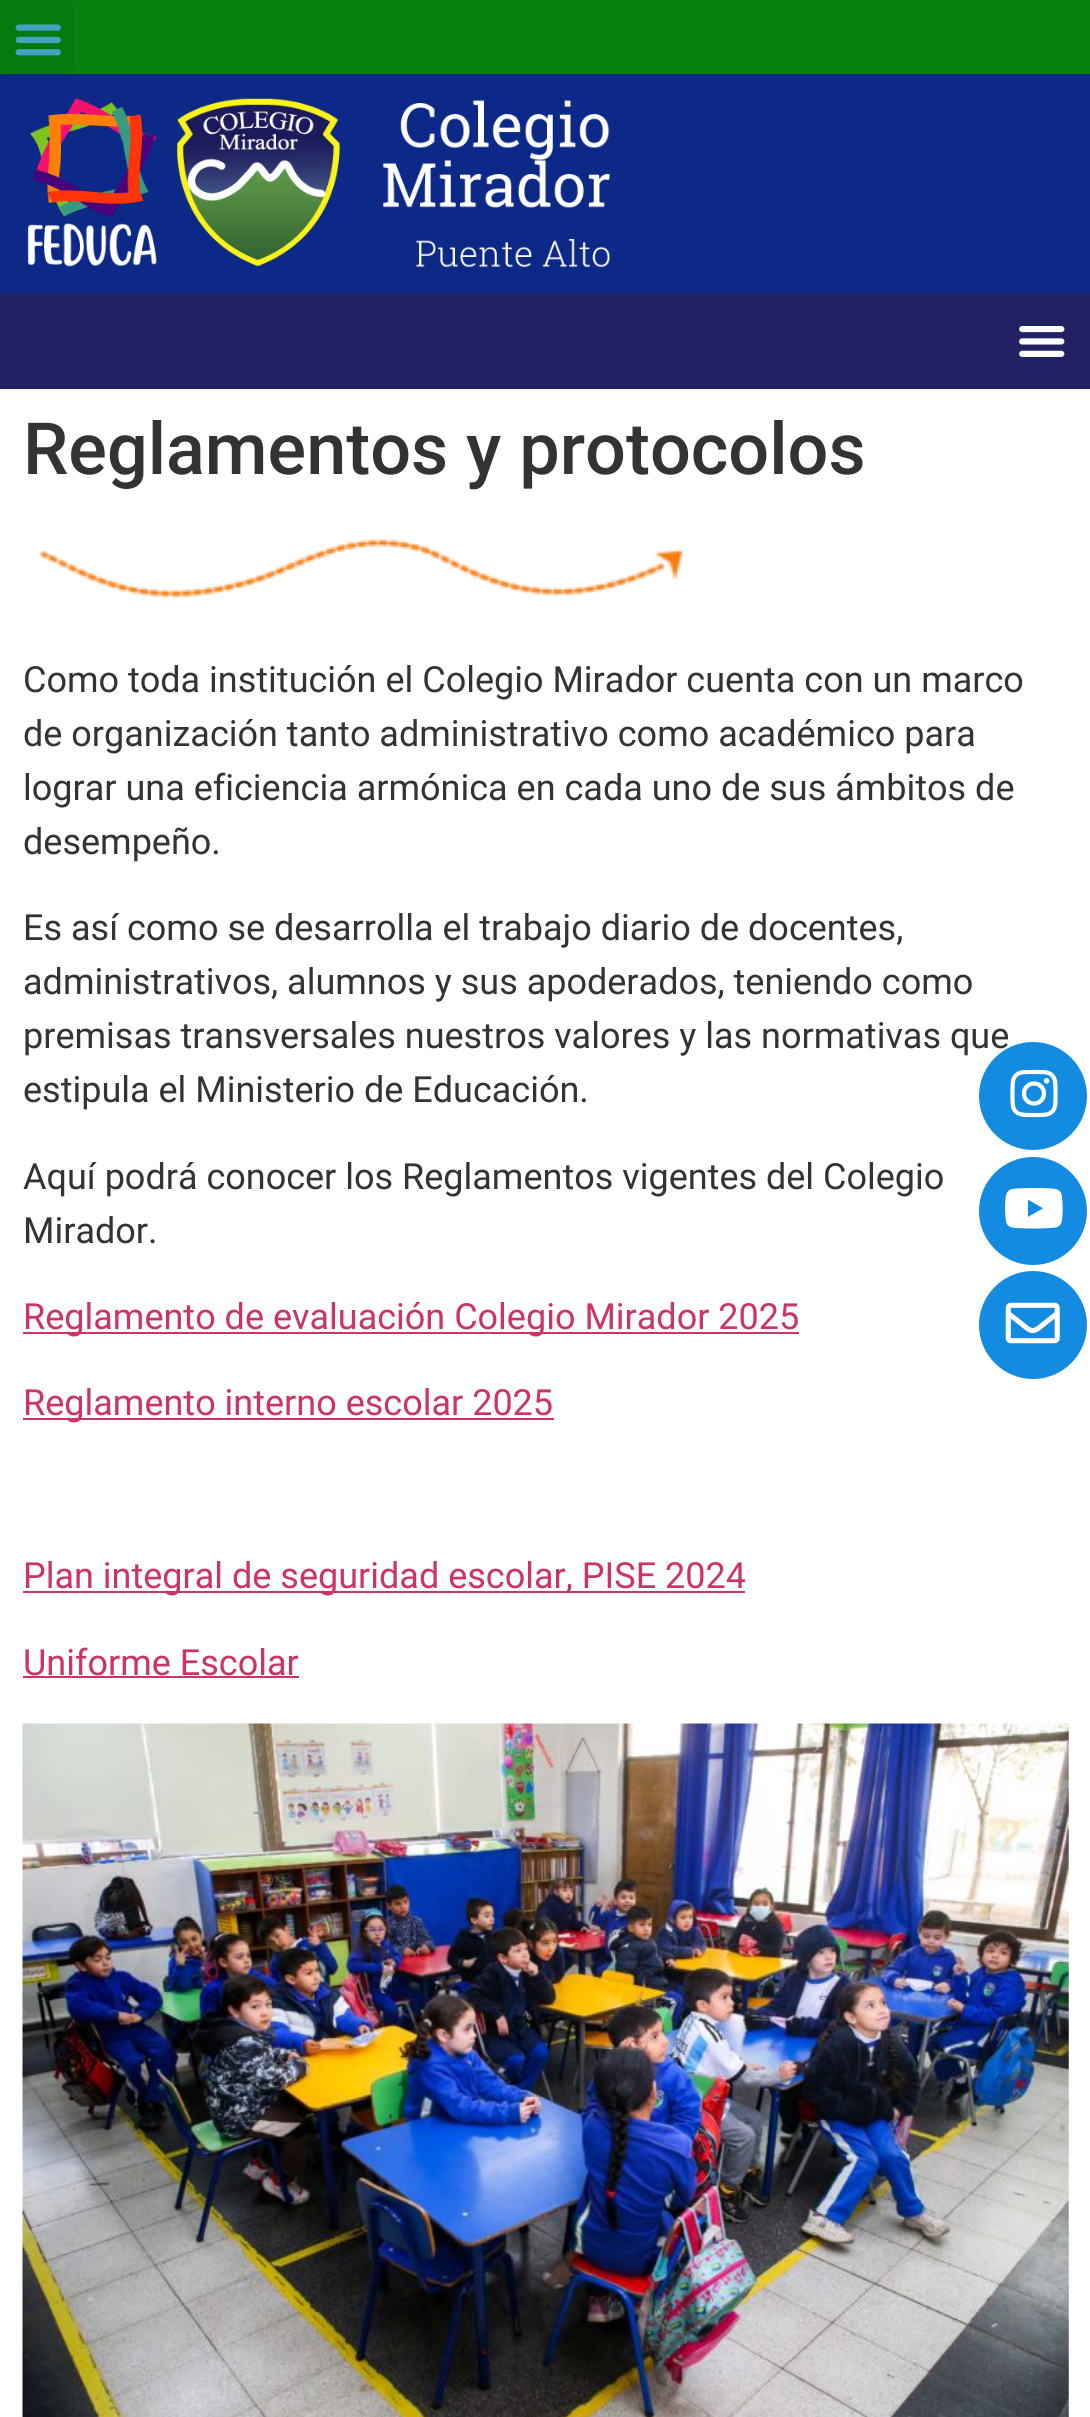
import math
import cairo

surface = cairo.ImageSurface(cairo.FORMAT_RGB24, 1090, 2417)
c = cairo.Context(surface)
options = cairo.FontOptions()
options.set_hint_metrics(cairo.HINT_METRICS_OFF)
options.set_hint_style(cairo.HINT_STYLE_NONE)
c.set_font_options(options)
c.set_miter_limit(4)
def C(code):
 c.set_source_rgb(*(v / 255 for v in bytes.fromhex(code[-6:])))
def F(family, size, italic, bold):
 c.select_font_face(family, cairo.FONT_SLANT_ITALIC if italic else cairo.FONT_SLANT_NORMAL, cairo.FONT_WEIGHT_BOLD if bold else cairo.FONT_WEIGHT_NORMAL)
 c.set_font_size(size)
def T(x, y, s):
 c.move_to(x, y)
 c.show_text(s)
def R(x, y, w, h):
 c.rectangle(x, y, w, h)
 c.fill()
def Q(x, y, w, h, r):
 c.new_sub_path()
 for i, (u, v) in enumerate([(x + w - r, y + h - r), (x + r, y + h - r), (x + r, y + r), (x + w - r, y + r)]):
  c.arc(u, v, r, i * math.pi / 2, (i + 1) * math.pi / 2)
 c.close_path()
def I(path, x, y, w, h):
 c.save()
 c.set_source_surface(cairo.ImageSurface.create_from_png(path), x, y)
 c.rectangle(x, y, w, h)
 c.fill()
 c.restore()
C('ffffff')
c.paint()
C('06800f')
R(0,0,1090,74)
C('067a0e')
Q(0,0,74,74,7)
c.fill()
I('1.png',15,24,46,32)
C('0d2988')
R(0,74,1090,219)
I('2.png',27,98,584,170)
C('212163')
R(0,293,1090,96)
I('3.png',1019,326,46,31)
F('Roboto Medium',72,0,0)
C('333333')
T(23,474,'Reglamentos y protocolos')
I('4.png',39,538,646,61)
F('Roboto',36,0,0)
T(23,692,'Como toda institución el Colegio Mirador cuenta con un marco')
T(23,746,'de organización tanto administrativo como académico para')
T(23,800,'lograr una eficiencia armónica en cada uno de sus ámbitos de')
T(23,854,'desempeño.')
T(23,940,'Es así como se desarrolla el trabajo diario de docentes,')
T(23,994,'administrativos, alumnos y sus apoderados, teniendo como')
T(23,1048,'premisas transversales nuestros valores y las normativas que')
T(23,1102,'estipula el Ministerio de Educación.')
T(23,1189,'Aquí podrá conocer los Reglamentos vigentes del Colegio')
T(23,1243,'Mirador.')
C('cc3366')
R(23,1332,776,2)
T(23,1329,'Reglamento de evaluación Colegio Mirador 2025')
R(23,1418,531,2)
T(23,1415,'Reglamento interno escolar 2025')
R(23,1591,722,2)
T(23,1588,'Plan integral de seguridad escolar, PISE 2024')
T(23,1675,'Uniforme Escolar')
R(23,1676,276,2)
I('5.png',22,1723,1047,694)
C('128be0')
c.arc(1033,1096,54,0,2 * math.pi)
c.fill()
I('6.png',1010,1069,48,49)
c.arc(1033,1211,54,0,2 * math.pi)
c.fill()
I('7.png',1005,1188,58,41)
c.arc(1033,1325,54,0,2 * math.pi)
c.fill()
I('8.png',1005,1302,55,42)
surface.write_to_png('o.png')
